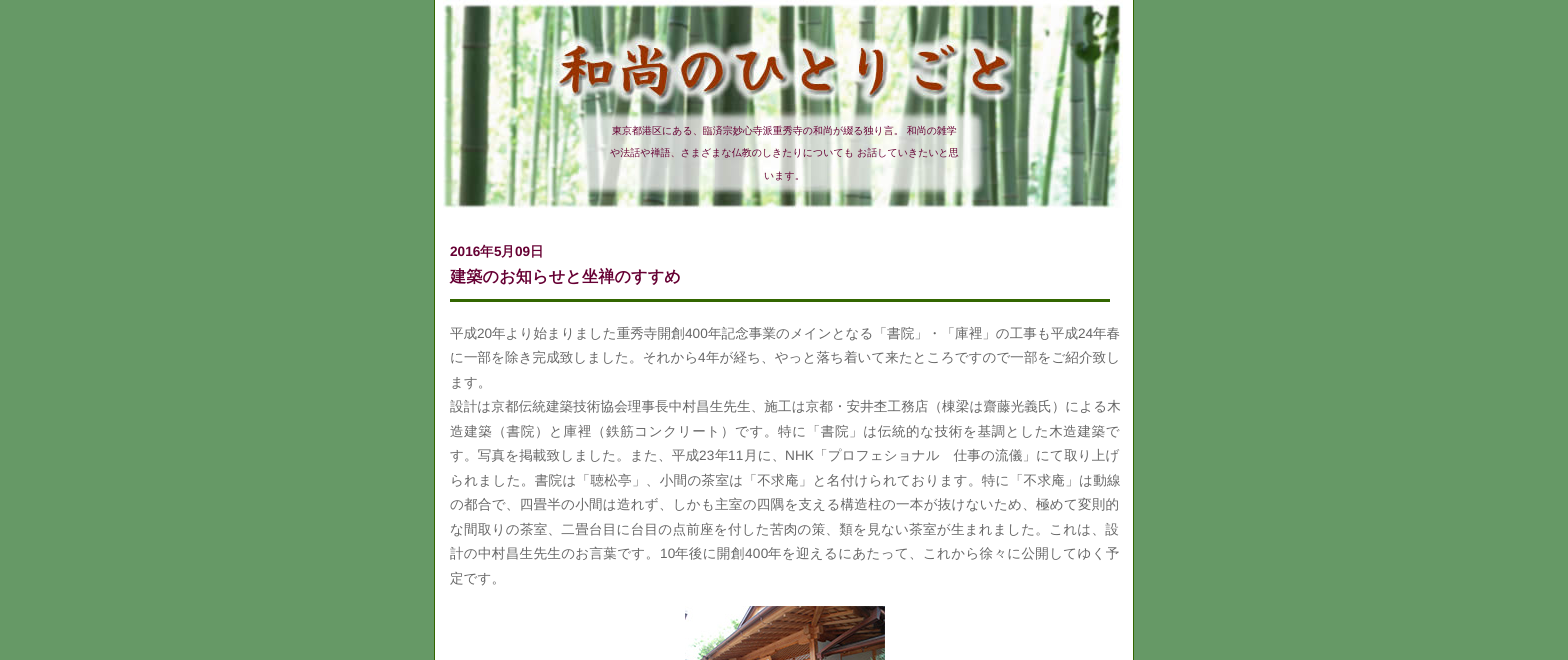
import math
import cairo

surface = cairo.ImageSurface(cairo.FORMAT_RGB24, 1568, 660)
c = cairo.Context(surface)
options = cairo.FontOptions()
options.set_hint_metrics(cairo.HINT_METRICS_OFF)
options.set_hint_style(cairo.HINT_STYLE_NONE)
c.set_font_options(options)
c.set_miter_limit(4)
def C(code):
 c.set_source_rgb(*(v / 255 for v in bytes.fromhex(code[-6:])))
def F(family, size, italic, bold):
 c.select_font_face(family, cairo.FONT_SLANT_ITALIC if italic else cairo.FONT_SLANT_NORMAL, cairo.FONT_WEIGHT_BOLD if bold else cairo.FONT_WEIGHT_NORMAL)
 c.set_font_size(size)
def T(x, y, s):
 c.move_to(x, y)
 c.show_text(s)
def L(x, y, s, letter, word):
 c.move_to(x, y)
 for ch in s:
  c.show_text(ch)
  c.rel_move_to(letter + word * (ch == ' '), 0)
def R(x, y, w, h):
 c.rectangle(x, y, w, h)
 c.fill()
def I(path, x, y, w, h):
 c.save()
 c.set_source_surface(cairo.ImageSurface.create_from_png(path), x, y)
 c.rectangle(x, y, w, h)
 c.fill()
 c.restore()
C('669966')
c.paint()
C('ffffff')
R(435,0,698,660)
I('1.png',443,0,680,208)
C('336600')
R(1133,0,1,660)
R(434,0,1,660)
F('WenQuanYi Zen Hei Medium',10,0,0)
C('660033')
T(612,134,'東京都港区にある、臨済宗妙心寺派重秀寺の和尚が綴る独り言。 和尚の雑学')
T(610,156,'や法話や禅語、さまざまな仏教のしきたりについても お話していきたいと思')
T(764,179,'います。')
F('Liberation Sans',13.6,0,1)
T(450,256,'2016')
F('WenQuanYi Zen Hei',13.6,0,1)
T(480,256,'年')
F('Liberation Sans',13.6,0,1)
T(494,256,'5')
F('WenQuanYi Zen Hei',13.6,0,1)
T(501,256,'月')
F('Liberation Sans',13.6,0,1)
T(515,256,'09')
F('WenQuanYi Zen Hei',13.6,0,1)
T(530,256,'日')
C('336600')
R(450,299,660,3)
F('WenQuanYi Zen Hei',16.25,0,1)
C('660033')
T(450,282,'建築のお知らせと坐禅のすすめ')
F('WenQuanYi Zen Hei Medium',13.6,0,0)
C('666666')
T(450,338,'平成')
F('Liberation Sans',13.6,0,0)
T(477,338,'20')
F('WenQuanYi Zen Hei Medium',13.6,0,0)
T(492,338,'年より始まりました重秀寺開創')
F('Liberation Sans',13.6,0,0)
T(685,338,'400')
F('WenQuanYi Zen Hei Medium',13.6,0,0)
T(708,338,'年記念事業のメインとなる「書院」・「庫裡」の工事も平成')
F('Liberation Sans',13.6,0,0)
T(1078,338,'24')
F('WenQuanYi Zen Hei Medium',13.6,0,0)
T(1093,338,'年春')
T(450,362,'に一部を除き完成致しました。それから')
F('Liberation Sans',13.6,0,0)
T(698,362,'4')
F('WenQuanYi Zen Hei Medium',13.6,0,0)
T(706,362,'年が経ち、やっと落ち着いて来たところですので一部をご紹介致し')
T(450,387,'ます。')
L(450,411,'設計は京都伝統建築技術協会理事長中村昌生先生、施工は京都・安井杢工務店（棟梁は齋藤光義氏）による木',.05,0)
L(450,436,'造建築（書院）と庫裡（鉄筋コンクリート）です。特に「書院」は伝統的な技術を基調とした木造建築で',.55,0)
L(450,460,'す。写真を掲載致しました。また、平成',.1,0)
F('Liberation Sans',13.6,0,0)
L(699,460,'23',.1,0)
F('WenQuanYi Zen Hei Medium',13.6,0,0)
L(715,460,'年',.1,0)
F('Liberation Sans',13.6,0,0)
L(728,460,'11',.1,0)
F('WenQuanYi Zen Hei Medium',13.6,0,0)
L(744,460,'月に、',.1,0)
F('Liberation Sans',13.6,0,0)
L(785,460,'NHK',.1,0)
F('WenQuanYi Zen Hei Medium',13.6,0,0)
L(814,460,'「プロフェショナル　仕事の流儀」にて取り上げ',.1,0)
L(450,485,'られました。書院は「聴松亭」、小間の茶室は「不求庵」と名付けられております。特に「不求庵」は動線',.25,0)
L(450,509,'の都合で、四畳半の小間は造れず、しかも主室の四隅を支える構造柱の一本が抜けないため、極めて変則的',.2,0)
L(450,534,'な間取りの茶室、二畳台目に台目の点前座を付した苦肉の策、類を見ない茶室が生まれました。これは、設',.2,0)
L(450,558,'計の中村昌生先生のお言葉です。',.25,0)
F('Liberation Sans',13.6,0,0)
L(660,558,'10',.25,0)
F('WenQuanYi Zen Hei Medium',13.6,0,0)
L(675,558,'年後に開創',.25,0)
F('Liberation Sans',13.6,0,0)
L(745,558,'400',.25,0)
F('WenQuanYi Zen Hei Medium',13.6,0,0)
L(768,558,'年を迎えるにあたって、これから徐々に公開してゆく予',.25,0)
T(450,583,'定です。')
I('2.png',685,606,200,54)
surface.write_to_png('o.png')
